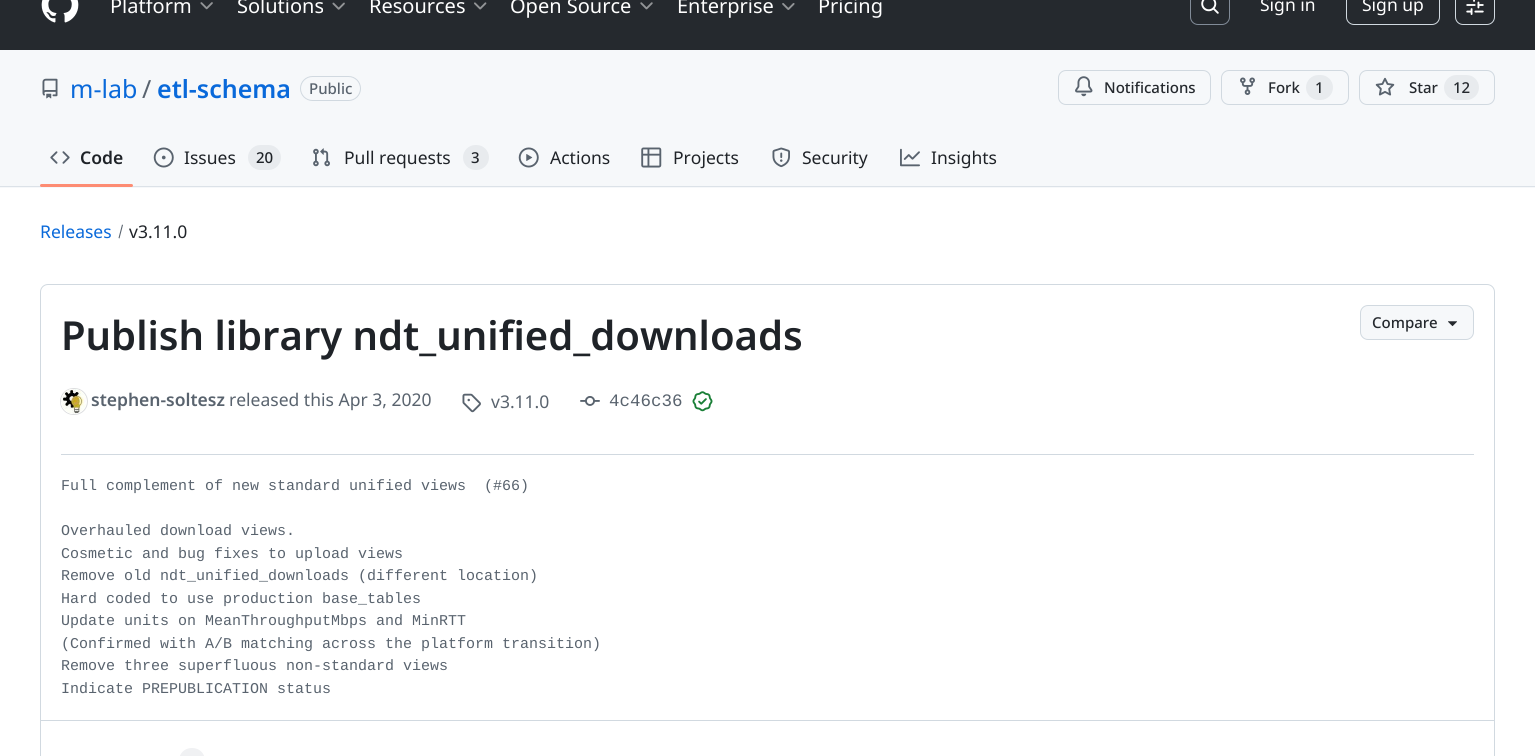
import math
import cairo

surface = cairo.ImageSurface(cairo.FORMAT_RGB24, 1535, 756)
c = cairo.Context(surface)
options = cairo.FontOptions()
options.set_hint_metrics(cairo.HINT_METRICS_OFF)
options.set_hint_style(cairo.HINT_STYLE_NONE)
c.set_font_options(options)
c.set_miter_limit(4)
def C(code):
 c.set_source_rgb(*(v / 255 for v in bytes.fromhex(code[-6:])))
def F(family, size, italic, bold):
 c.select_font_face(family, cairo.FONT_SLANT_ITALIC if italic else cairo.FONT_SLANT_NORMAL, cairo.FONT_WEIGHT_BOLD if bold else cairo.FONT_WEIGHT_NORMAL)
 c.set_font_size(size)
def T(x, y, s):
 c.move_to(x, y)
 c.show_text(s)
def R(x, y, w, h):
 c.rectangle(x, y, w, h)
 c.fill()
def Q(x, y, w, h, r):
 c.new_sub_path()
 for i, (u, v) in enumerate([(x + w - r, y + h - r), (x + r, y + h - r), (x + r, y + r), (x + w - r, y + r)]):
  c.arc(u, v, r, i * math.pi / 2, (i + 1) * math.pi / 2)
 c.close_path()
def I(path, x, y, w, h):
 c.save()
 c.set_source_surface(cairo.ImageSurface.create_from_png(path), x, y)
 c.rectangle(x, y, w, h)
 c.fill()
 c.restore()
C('ffffff')
c.paint()
C('25292e')
R(0,0,1535,50)
I('1.png',41,0,38,23)
F('Noto Sans',20,0,0)
C('ffffff')
T(110,13,'Platform')
I('2.png',200,2,13,8)
T(237,13,'Solutions')
I('3.png',332,2,13,8)
T(369,13,'Resources')
I('4.png',474,2,13,8)
T(510,13,'Open Source')
I('5.png',640,2,13,8)
T(677,13,'Enterprise')
I('6.png',782,3,13,7)
T(818,13,'Pricing')
Q(1190.5,-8.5,39,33,7.5)
C('818b98')
c.set_line_width(1)
c.stroke()
I('7.png',1201,0,18,14)
F('Noto Sans',17.5,0,0)
C('ffffff')
T(1260,11,'Sign in')
Q(1346.5,-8.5,93,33,7.5)
C('d1d9e0')
c.stroke()
C('ffffff')
T(1362,11,'Sign up')
Q(1455.5,-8.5,39,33,7.5)
C('d1d9e0')
c.stroke()
I('8.png',1466,0,18,15)
C('f6f8fa')
R(0,50,1535,138)
I('9.png',42,78,16,21)
F('Noto Sans',25,0,0)
C('0969da')
T(70,98,'m-lab')
C('59636e')
T(142,98,'/')
F('Noto Sans SemiBold',25,0,0)
C('0969da')
T(157,98,'etl-schema')
Q(300.5,76.5,60,24,12)
C('d1d9e0')
c.stroke()
F('Noto Sans Medium',15,0,0)
C('59636e')
T(309,94,'Public')
Q(1058.5,70.5,152,34,7.5)
C('d1d9e0')
c.stroke()
I('10.png',1075,76,18,21)
C('25292e')
T(1104,93,'Notifications')
Q(1221.5,70.5,127,34,7.5)
C('d1d9e0')
c.stroke()
I('11.png',1240,77,15,18)
C('25292e')
T(1268,93,'Fork')
C('e8ebee')
Q(1306,75,27,25,12.5)
c.fill()
C('25292e')
T(1315,93,'1')
Q(1359.5,70.5,135,34,7.5)
C('d1d9e0')
c.stroke()
I('12.png',1375,77,20,19)
C('25292e')
T(1409,93,'Star')
C('e8ebee')
Q(1444,75,35,25,12.5)
c.fill()
C('25292e')
T(1453,93,'12')
C('dce2e8')
R(0,186,1535,1)
I('13.png',50,151,20,13)
F('Noto Sans SemiBold',17.5,0,0)
C('1f2328')
T(80,164,'Code')
C('fd8c73')
Q(40,184,93,3,1.5)
c.fill()
I('14.png',153,147,21,21)
F('Noto Sans',17.5,0,0)
C('1f2328')
T(184,164,'Issues')
C('e8ebee')
Q(248,145,33,25,12.5)
c.fill()
F('Noto Sans Medium',15,0,0)
C('1f2328')
T(256,163,'20')
I('15.png',313,148,17,19)
F('Noto Sans',17.5,0,0)
T(344,164,'Pull requests')
C('e8ebee')
Q(463,145,26,25,12.5)
c.fill()
F('Noto Sans Medium',15,0,0)
C('1f2328')
T(471,163,'3')
I('16.png',518,147,21,21)
F('Noto Sans',17.5,0,0)
T(550,164,'Actions')
I('17.png',641,147,21,21)
T(673,164,'Projects')
I('18.png',772,147,18,21)
T(802,164,'Security')
I('19.png',900,148,20,19)
T(931,164,'Insights')
C('0969da')
T(40,238,'Releases')
C('59636e')
c.new_path()
c.move_to(122,224.5)
c.line_to(123,225)
c.line_to(119.5,238.5)
c.line_to(118.5,238)
c.close_path()
c.fill()
C('1f2328')
T(129,238,'v3.11.0')
Q(40.5,284.5,1454,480,7.5)
C('d1d9e0')
c.stroke()
R(41,720,1453,1)
F('Noto Sans SemiBold',40,0,0)
C('1f2328')
T(61,350,'Publish library ndt_unified_downloads')
C('f6f8fa')
Q(1360.5,305.5,113,34,7.5)
c.fill_preserve()
C('d1d9e0')
c.stroke()
F('Noto Sans Medium',15,0,0)
C('25292e')
T(1372,328,'Compare')
I('20.png',1448,321,9,6)
C('d1d9e0')
R(61,454,1413,1)
Q(60.5,388.5,27,26,13)
C('dddedf')
c.stroke()
C('ffffff')
c.arc(73.5,401.5,12.5,0,2 * math.pi)
c.fill()
I('21.png',61,389,25,25)
F('Noto Sans SemiBold',17.5,0,0)
C('59636e')
T(91,406,'stephen-soltesz')
F('Noto Sans',17.5,0,0)
T(229,406,'released this Apr 3, 2020')
I('22.png',462,393,19,20)
T(491,408,'v3.11.0')
I('23.png',580,396,20,10)
F('Liberation Mono',17.5,0,0)
T(609,406,'4c46c36')
I('24.png',692,391,21,21)
F('Liberation Mono',15,0,0)
T(61,490,'Full complement of new standard unified views  (#66)')
T(61,535,'Overhauled download views.')
T(61,558,'Cosmetic and bug fixes to upload views')
T(61,580,'Remove old ndt_unified_downloads (different location)')
T(61,603,'Hard coded to use production base_tables')
T(61,625,'Update units on MeanThroughputMbps and MinRTT')
T(61,648,'(Confirmed with A/B matching across the platform transition)')
T(61,670,'Remove three superfluous non-standard views')
T(61,693,'Indicate PREPUBLICATION status')
C('f0f1f3')
Q(179,748,26,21,12.5)
c.fill()
surface.write_to_png('o.png')
